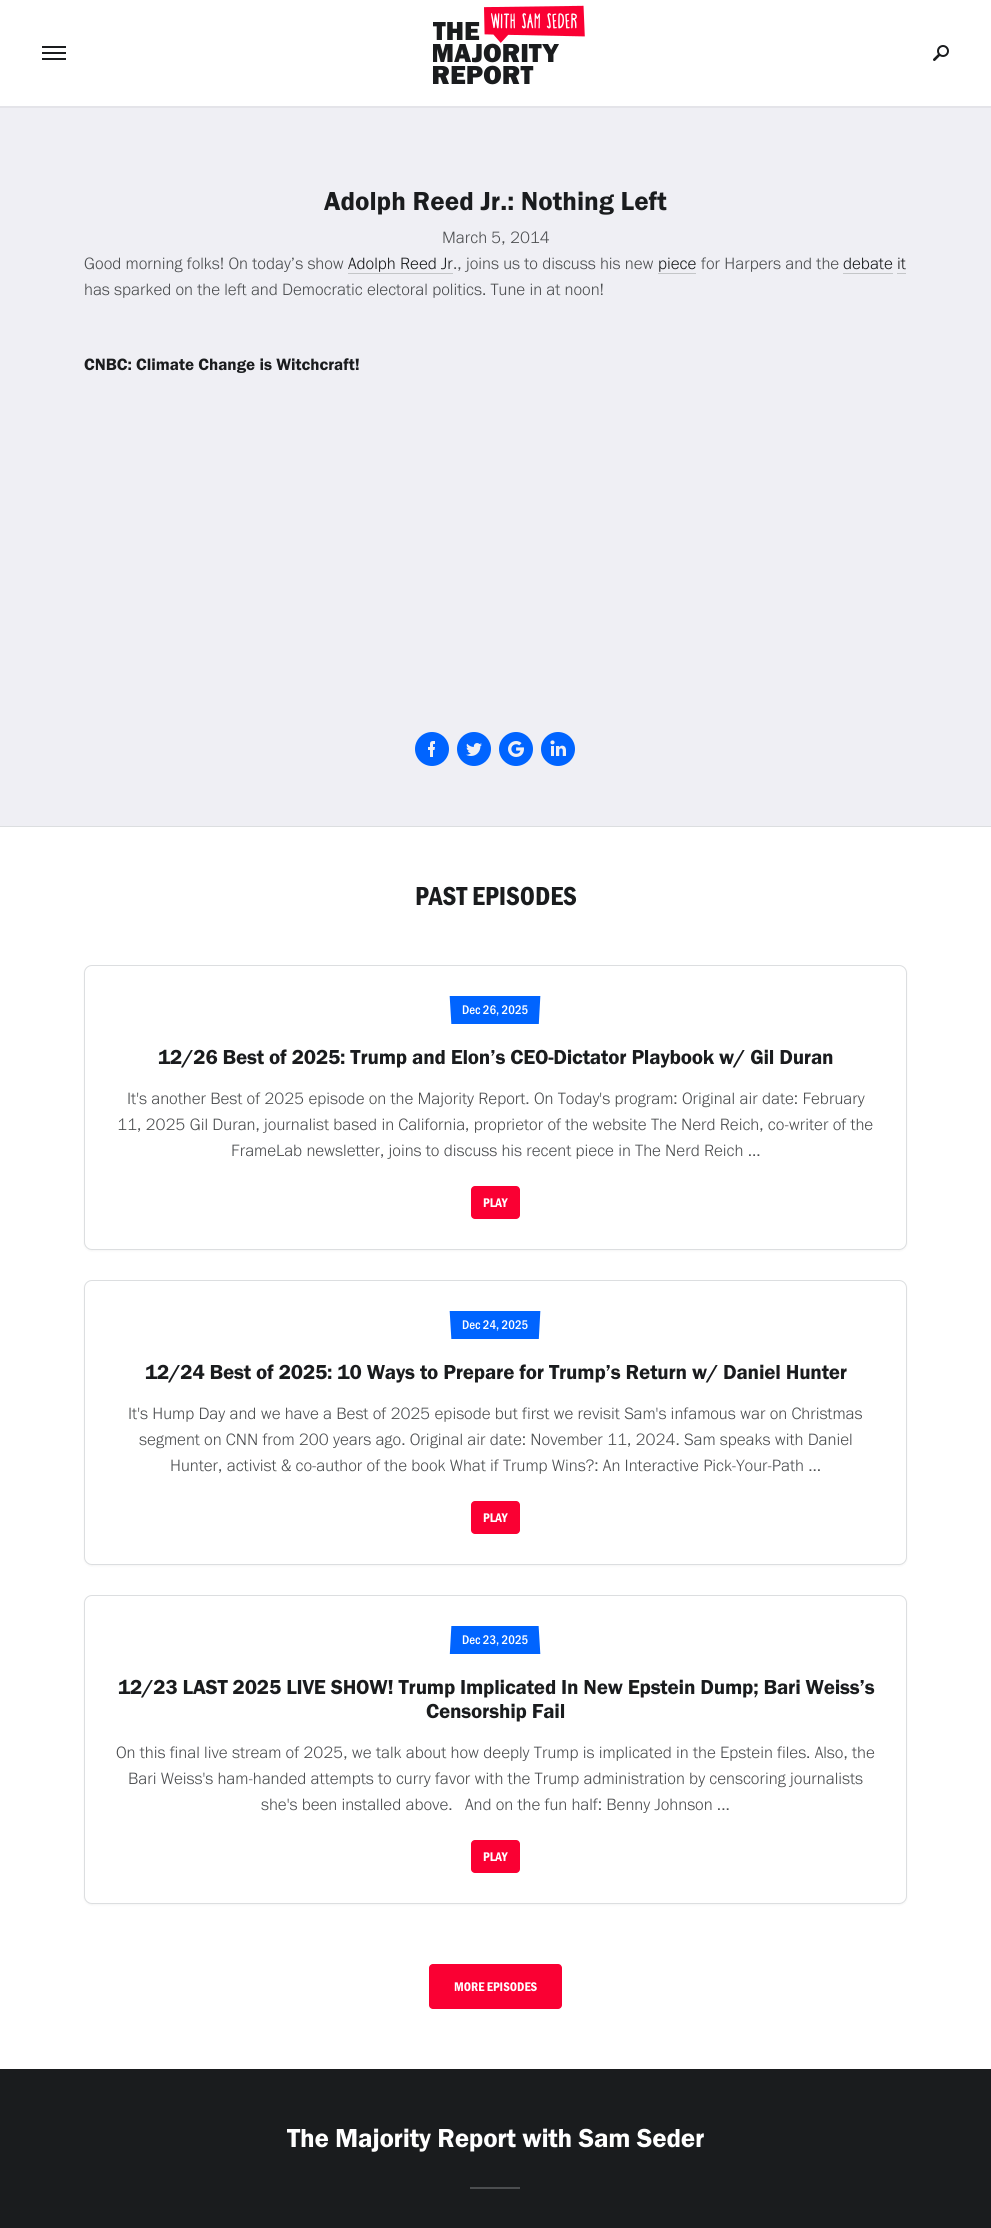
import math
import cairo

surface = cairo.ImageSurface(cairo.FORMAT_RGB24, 991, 2228)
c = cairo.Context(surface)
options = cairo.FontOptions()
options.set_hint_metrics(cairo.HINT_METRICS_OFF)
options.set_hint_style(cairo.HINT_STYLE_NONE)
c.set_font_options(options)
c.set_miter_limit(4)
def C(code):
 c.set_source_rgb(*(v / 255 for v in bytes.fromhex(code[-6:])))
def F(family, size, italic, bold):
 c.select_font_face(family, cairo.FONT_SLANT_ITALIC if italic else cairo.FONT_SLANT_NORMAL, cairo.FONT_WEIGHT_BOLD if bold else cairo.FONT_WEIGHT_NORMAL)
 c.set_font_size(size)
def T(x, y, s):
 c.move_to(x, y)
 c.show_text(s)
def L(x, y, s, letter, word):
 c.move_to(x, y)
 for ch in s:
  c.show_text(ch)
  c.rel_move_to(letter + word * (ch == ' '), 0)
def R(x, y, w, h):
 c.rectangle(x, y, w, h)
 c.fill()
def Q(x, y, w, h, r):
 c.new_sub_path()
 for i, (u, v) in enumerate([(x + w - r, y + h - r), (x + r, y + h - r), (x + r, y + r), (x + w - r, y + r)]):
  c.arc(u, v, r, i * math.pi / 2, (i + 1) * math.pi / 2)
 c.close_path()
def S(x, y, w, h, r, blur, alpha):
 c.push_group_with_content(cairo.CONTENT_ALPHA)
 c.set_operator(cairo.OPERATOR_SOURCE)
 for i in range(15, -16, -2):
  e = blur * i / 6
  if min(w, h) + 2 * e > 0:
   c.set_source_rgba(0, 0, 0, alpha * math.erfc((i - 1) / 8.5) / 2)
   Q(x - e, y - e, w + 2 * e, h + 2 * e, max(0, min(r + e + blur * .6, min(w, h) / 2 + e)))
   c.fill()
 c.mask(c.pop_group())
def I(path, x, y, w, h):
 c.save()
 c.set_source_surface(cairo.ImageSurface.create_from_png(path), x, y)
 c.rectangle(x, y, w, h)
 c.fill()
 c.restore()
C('1a1c1e')
c.paint()
C('e4e4e9')
R(0,106,991,2)
C('ffffff')
R(0,0,991,106)
I('1.png',42,46,24,14)
I('3.png',433,22,126,63)
I('2.png',484,5,101,38)
I('4.png',933,45,16,16)
C('efeff4')
R(0,108,991,718)
F('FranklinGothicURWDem',27,0,0)
C('1a1c1e')
T(324,210,'Adolph Reed Jr.: Nothing Left')
F('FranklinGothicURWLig',17,0,0)
C('4c4e50')
T(442,243,'March 5, 2014')
T(84,269,'Good morning folks! On today’s show')
C('1a1c1e')
T(348,269,'Adolph Reed Jr')
C('c4c6c8')
R(348,273,105,1)
C('4c4e50')
T(453,269,'., joins us to discuss his new')
C('1a1c1e')
T(658,269,'piece')
C('c4c6c8')
R(658,273,38,1)
C('4c4e50')
T(701,269,'for Harpers and the')
C('1a1c1e')
T(843,269,'debate it')
C('c4c6c8')
R(843,273,50,1)
R(897,273,9,1)
C('4c4e50')
T(84,295,'has sparked on the left and Democratic electoral politics. Tune in at noon!')
F('FranklinGothicURWDem',17,0,0)
C('1a1c1e')
T(84,370,'CNBC: Climate Change is Witchcraft!')
I('5.png',415,732,34,34)
I('6.png',457,732,34,34)
I('7.png',499,732,34,34)
I('8.png',541,732,34,34)
C('ffffff')
R(0,827,991,1242)
C('dcdee0')
R(0,826,991,1)
F('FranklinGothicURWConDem',27,0,0)
C('1a1c1e')
T(415,905,'PAST EPISODES')
C('1a1c1e')
S(84,966,823,285,8,1,.05)
C('ffffff')
Q(84.5,965.5,822,284,7.5)
c.fill_preserve()
C('dcdee0')
c.set_line_width(1)
c.stroke()
c.save()
c.rectangle(448,996,95,28)
c.clip()
C('0064ff')
c.new_path()
c.move_to(542,966)
c.line_to(537,1057)
c.line_to(453,1052)
c.line_to(448,968)
c.line_to(486,966)
c.close_path()
c.fill()
c.restore()
F('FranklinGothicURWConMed',13,0,0)
C('ffffff')
T(462,1014,'Dec 26, 2025')
F('FranklinGothicURWDem',21,0,0)
C('1a1c1e')
L(158,1064,'12/26 Best of 2025: Trump and Elon’s CEO-Dictator Playbook w/ Gil Duran',-.2,0)
F('FranklinGothicURWLig',17,0,0)
C('4c4e50')
T(127,1104,'It\'s another Best of 2025 episode on the Majority Report. On Today\'s program: Original air date: February')
T(117,1130,'11, 2025 Gil Duran, journalist based in California, proprietor of the website The Nerd Reich, co-writer of the')
T(231,1156,'FrameLab newsletter, joins to discuss his recent piece in The Nerd Reich ...')
C('fa0033')
Q(471,1186,49,33,4)
c.fill()
F('FranklinGothicURWConDem',13,0,0)
C('ffffff')
T(483,1207,'PLAY')
C('1a1c1e')
S(84,1281,823,285,8,1,.05)
C('ffffff')
Q(84.5,1280.5,822,284,7.5)
c.fill_preserve()
C('dcdee0')
c.stroke()
c.save()
c.rectangle(448,1311,95,28)
c.clip()
C('0064ff')
c.new_path()
c.move_to(542,1281)
c.line_to(537,1372)
c.line_to(453,1367)
c.line_to(448,1283)
c.line_to(486,1281)
c.close_path()
c.fill()
c.restore()
F('FranklinGothicURWConMed',13,0,0)
C('ffffff')
T(462,1329,'Dec 24, 2025')
F('FranklinGothicURWDem',21,0,0)
C('1a1c1e')
L(145,1379,'12/24 Best of 2025: 10 Ways to Prepare for Trump’s Return w/ Daniel Hunter',-.2,0)
F('FranklinGothicURWLig',17,0,0)
C('4c4e50')
T(128,1419,'It\'s Hump Day and we have a Best of 2025 episode but first we revisit Sam\'s infamous war on Christmas')
T(139,1445,'segment on CNN from 200 years ago. Original air date: November 11, 2024. Sam speaks with Daniel')
T(170,1471,'Hunter, activist & co-author of the book What if Trump Wins?: An Interactive Pick-Your-Path ...')
C('fa0033')
Q(471,1501,49,33,4)
c.fill()
F('FranklinGothicURWConDem',13,0,0)
C('ffffff')
T(483,1522,'PLAY')
C('1a1c1e')
S(84,1596,823,309,8,1,.05)
C('ffffff')
Q(84.5,1595.5,822,308,7.5)
c.fill_preserve()
C('dcdee0')
c.stroke()
c.save()
c.rectangle(448,1626,95,28)
c.clip()
C('0064ff')
c.new_path()
c.move_to(448,1687)
c.line_to(542,1682)
c.line_to(537,1599)
c.line_to(495,1596)
c.line_to(453,1596)
c.close_path()
c.fill()
c.restore()
F('FranklinGothicURWConMed',13,0,0)
C('ffffff')
T(462,1644,'Dec 23, 2025')
F('FranklinGothicURWDem',21,0,0)
C('1a1c1e')
L(118,1694,'12/23 LAST 2025 LIVE SHOW! Trump Implicated In New Epstein Dump; Bari Weiss’s',-.2,0)
L(426,1718,'Censorship Fail',-.2,0)
F('FranklinGothicURWLig',17,0,0)
C('4c4e50')
T(116,1758,'On this final live stream of 2025, we talk about how deeply Trump is implicated in the Epstein files. Also, the')
T(128,1784,'Bari Weiss\'s ham-handed attempts to curry favor with the Trump administration by censcoring journalists')
T(261,1810,'she\'s been installed above.')
T(465,1810,'And on the fun half: Benny Johnson ...')
C('fa0033')
Q(471,1840,49,33,4)
c.fill()
F('FranklinGothicURWConDem',13,0,0)
C('ffffff')
T(483,1861,'PLAY')
C('fa0033')
Q(429,1964,133,45,4)
c.fill()
C('ffffff')
T(454,1991,'MORE EPISODES')
F('FranklinGothicURWDem',27,0,0)
L(287,2147,'The Majority Report with Sam Seder',-.25,0)
C('4c4e50')
R(470,2187,50,2)
surface.write_to_png('o.png')
